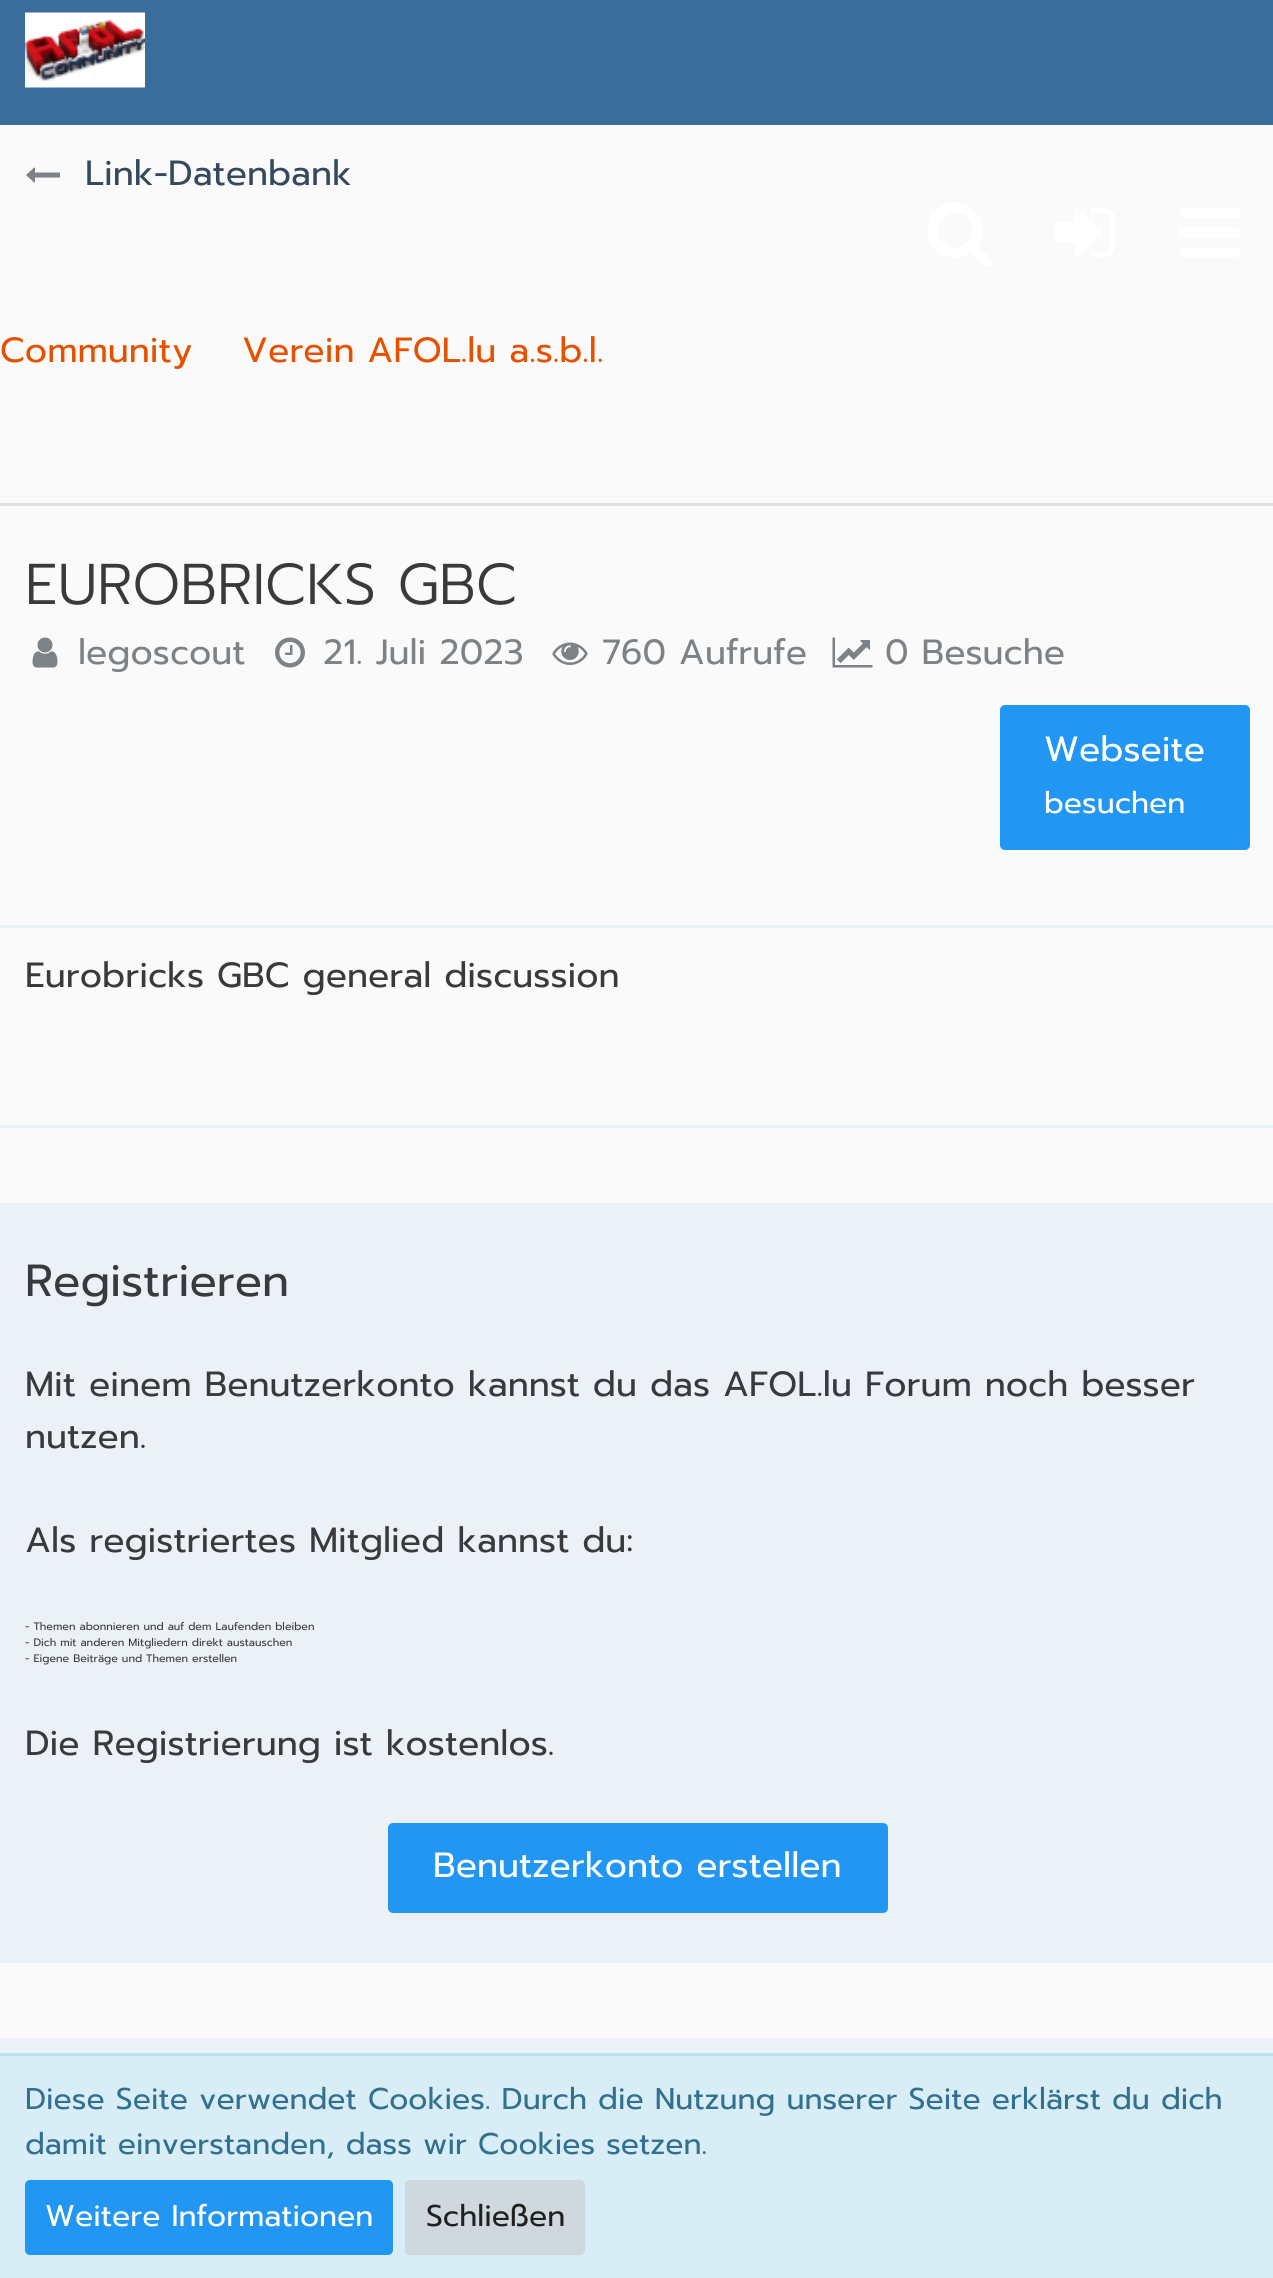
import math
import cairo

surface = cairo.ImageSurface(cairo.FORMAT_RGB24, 1273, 2278)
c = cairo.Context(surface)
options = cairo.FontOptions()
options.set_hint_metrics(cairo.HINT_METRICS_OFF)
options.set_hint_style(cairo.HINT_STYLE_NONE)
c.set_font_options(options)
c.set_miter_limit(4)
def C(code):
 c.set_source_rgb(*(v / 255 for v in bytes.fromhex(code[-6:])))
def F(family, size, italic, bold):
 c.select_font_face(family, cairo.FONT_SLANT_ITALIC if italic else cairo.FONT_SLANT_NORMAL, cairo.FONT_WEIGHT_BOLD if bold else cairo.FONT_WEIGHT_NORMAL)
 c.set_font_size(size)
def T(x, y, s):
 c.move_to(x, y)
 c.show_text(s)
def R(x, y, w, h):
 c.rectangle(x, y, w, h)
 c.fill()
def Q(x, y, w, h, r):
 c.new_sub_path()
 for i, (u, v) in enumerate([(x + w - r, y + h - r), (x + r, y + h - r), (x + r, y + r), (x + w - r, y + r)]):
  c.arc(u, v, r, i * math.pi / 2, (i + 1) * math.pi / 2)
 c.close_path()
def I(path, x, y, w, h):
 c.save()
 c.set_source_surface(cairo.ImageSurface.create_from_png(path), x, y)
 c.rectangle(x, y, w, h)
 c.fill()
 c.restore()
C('fafafa')
c.paint()
C('3a6d9c')
R(0,0,1273,125)
I('1.png',25,12,120,76)
I('2.png',928,203,64,64)
I('3.png',1055,208,60,49)
I('4.png',1180,208,60,49)
I('5.png',26,167,34,16)
F('Prompt',35,0,0)
C('34495e')
T(85,185,'Link-Datenbank')
C('e0e0e0')
R(0,503,1273,3)
C('e65100')
T(0,362,'Community')
T(242,362,'Verein AFOL.lu a.s.b.l.')
F('Prompt Light',57.5,0,0)
C('3a3a3d')
T(25,604,'EUROBRICKS GBC')
I('6.png',32,637,26,31)
F('Prompt',35,0,0)
C('7d8287')
T(78,664,'legoscout')
I('7.png',275,637,30,31)
T(323,664,'21. Juli 2023')
I('8.png',552,642,36,23)
T(602,664,'760 Aufrufe')
I('9.png',832,637,41,31)
T(885,664,'0 Besuche')
C('2196f3')
Q(1000,705,250,145,5)
c.fill()
C('ffffff')
T(1044,761,'Webseite')
F('Prompt',30,0,0)
T(1044,813,'besuchen')
C('ecf1f7')
R(0,925,1273,3)
R(0,1125,1273,3)
F('Prompt',35,0,0)
C('3a3a3d')
T(25,987,'Eurobricks GBC general discussion')
C('ecf1f7')
R(0,1203,1273,760)
F('Prompt',45,0,0)
C('3a3a3d')
T(25,1296,'Registrieren')
F('Prompt',35,0,0)
T(25,1396,'Mit einem Benutzerkonto kannst du das AFOL.lu Forum noch besser')
T(25,1448,'nutzen.')
T(25,1552,'Als registriertes Mitglied kannst du:')
F('Prompt',10.85,0,0)
T(25,1630,'- Themen abonnieren und auf dem Laufenden bleiben')
T(25,1646,'- Dich mit anderen Mitgliedern direkt austauschen')
T(25,1662,'- Eigene Beiträge und Themen erstellen')
F('Prompt',35,0,0)
T(25,1755,'Die Registrierung ist kostenlos.')
C('2196f3')
Q(388,1823,500,90,5)
c.fill()
C('ffffff')
T(433,1877,'Benutzerkonto erstellen')
C('ecf1f7')
R(0,2038,1273,15)
C('d9edf7')
R(0,2056,1273,222)
C('bcdff1')
R(0,2053,1273,3)
F('Prompt',30,0,0)
C('31708f')
T(25,2109,'Diese Seite verwendet Cookies. Durch die Nutzung unserer Seite erklärst du dich')
T(25,2154,'damit einverstanden, dass wir Cookies setzen.')
C('2196f3')
Q(25,2180,368,75,5)
c.fill()
C('ffffff')
T(45,2226,'Weitere Informationen')
C('cfd8dc')
Q(405,2180,180,75,5)
c.fill()
C('212121')
T(426,2226,'Schließen')
surface.write_to_png('o.png')
